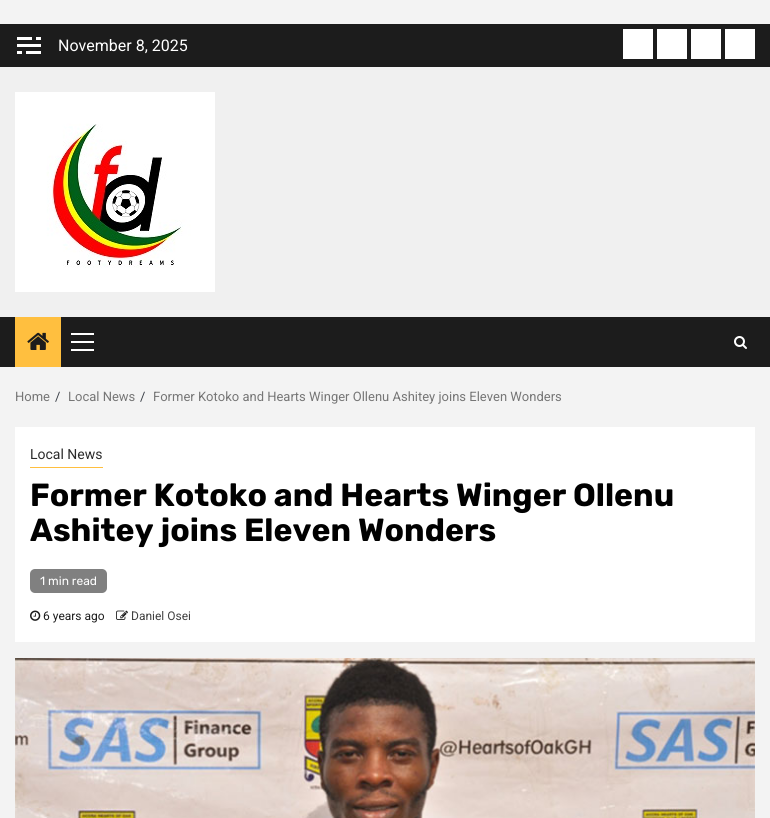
import math
import cairo

surface = cairo.ImageSurface(cairo.FORMAT_RGB24, 770, 818)
c = cairo.Context(surface)
options = cairo.FontOptions()
options.set_hint_metrics(cairo.HINT_METRICS_OFF)
options.set_hint_style(cairo.HINT_STYLE_NONE)
c.set_font_options(options)
c.set_miter_limit(4)
def C(code):
 c.set_source_rgb(*(v / 255 for v in bytes.fromhex(code[-6:])))
def F(family, size, italic, bold):
 c.select_font_face(family, cairo.FONT_SLANT_ITALIC if italic else cairo.FONT_SLANT_NORMAL, cairo.FONT_WEIGHT_BOLD if bold else cairo.FONT_WEIGHT_NORMAL)
 c.set_font_size(size)
def T(x, y, s):
 c.move_to(x, y)
 c.show_text(s)
def R(x, y, w, h):
 c.rectangle(x, y, w, h)
 c.fill()
def Q(x, y, w, h, r):
 c.new_sub_path()
 for i, (u, v) in enumerate([(x + w - r, y + h - r), (x + r, y + h - r), (x + r, y + r), (x + w - r, y + r)]):
  c.arc(u, v, r, i * math.pi / 2, (i + 1) * math.pi / 2)
 c.close_path()
def I(path, x, y, w, h):
 c.save()
 c.set_source_surface(cairo.ImageSurface.create_from_png(path), x, y)
 c.rectangle(x, y, w, h)
 c.fill()
 c.restore()
C('f3f3f3')
c.paint()
C('f0f0f0')
R(0,67,770,250)
C('1c1c1c')
R(0,24,770,43)
C('ffffff')
R(36,37,5,3)
R(17,37,15,3)
R(17,44,24,3)
R(26,51,15,3)
R(17,51,5,3)
F('Roboto',16,0,0)
T(58,51,'November 8, 2025')
R(623,29,30,30)
R(657,29,30,30)
R(691,29,30,30)
R(725,29,30,30)
I('1.png',15,92,200,200)
C('1c1c1c')
R(0,317,770,50)
C('ffbf3f')
R(15,317,46,50)
I('2.png',27,332,22,18)
C('ffffff')
R(71,341,23,2)
R(71,333,23,2)
R(71,349,23,2)
I('3.png',734,336,13,13)
F('Roboto',13,0,0)
C('767676')
T(15,401,'Home')
C('393e46')
T(55,401,'/')
C('767676')
T(68,401,'Local News')
C('393e46')
T(140,401,'/')
C('767676')
T(153,401,'Former Kotoko and Hearts Winger Ollenu Ashitey joins Eleven Wonders')
C('ffffff')
R(15,427,740,215)
C('ffbf3f')
R(30,467,73,1)
F('Roboto',14,0,0)
C('2b2b2b')
T(30,459,'Local News')
F('Rubik Light',32,0,0)
C('000000')
T(30,506,'Former Kotoko and Hearts Winger Ollenu')
T(30,541,'Ashitey joins Eleven Wonders')
C('808080')
Q(30,569,77,24,5)
c.fill()
F('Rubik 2 Light',12,0,0)
C('ffffff')
T(40,585,'1 min read')
I('4.png',30,610,11,11)
F('Roboto',12,0,0)
C('1c1c1c')
T(43,620,'6 years ago')
I('5.png',116,610,12,10)
C('404040')
T(131,620,'Daniel Osei')
I('6.png',15,658,740,160)
surface.write_to_png('o.png')
